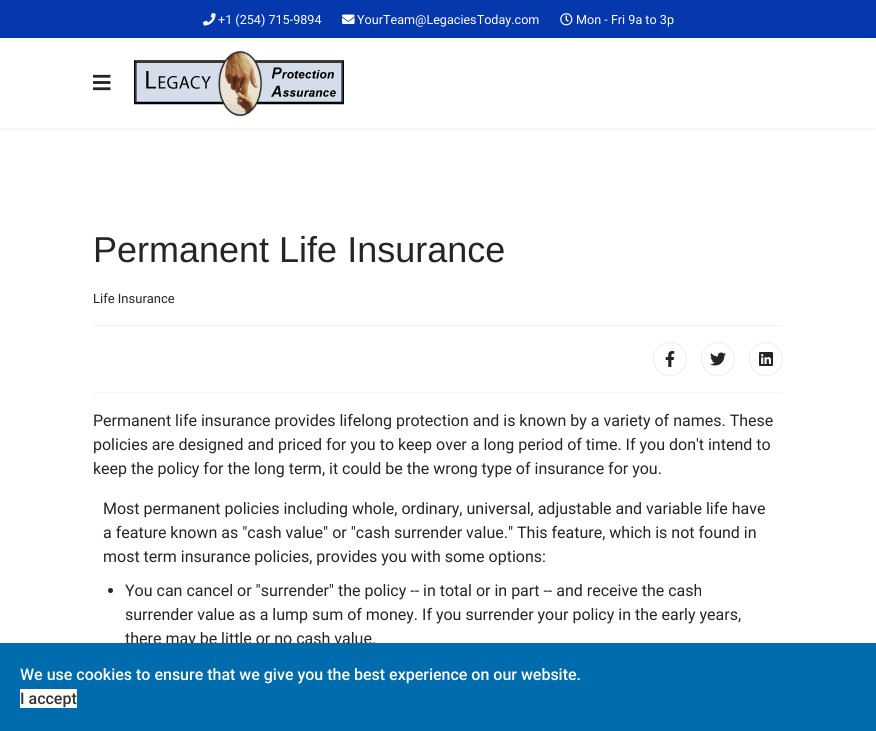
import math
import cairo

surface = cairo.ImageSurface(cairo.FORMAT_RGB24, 876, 731)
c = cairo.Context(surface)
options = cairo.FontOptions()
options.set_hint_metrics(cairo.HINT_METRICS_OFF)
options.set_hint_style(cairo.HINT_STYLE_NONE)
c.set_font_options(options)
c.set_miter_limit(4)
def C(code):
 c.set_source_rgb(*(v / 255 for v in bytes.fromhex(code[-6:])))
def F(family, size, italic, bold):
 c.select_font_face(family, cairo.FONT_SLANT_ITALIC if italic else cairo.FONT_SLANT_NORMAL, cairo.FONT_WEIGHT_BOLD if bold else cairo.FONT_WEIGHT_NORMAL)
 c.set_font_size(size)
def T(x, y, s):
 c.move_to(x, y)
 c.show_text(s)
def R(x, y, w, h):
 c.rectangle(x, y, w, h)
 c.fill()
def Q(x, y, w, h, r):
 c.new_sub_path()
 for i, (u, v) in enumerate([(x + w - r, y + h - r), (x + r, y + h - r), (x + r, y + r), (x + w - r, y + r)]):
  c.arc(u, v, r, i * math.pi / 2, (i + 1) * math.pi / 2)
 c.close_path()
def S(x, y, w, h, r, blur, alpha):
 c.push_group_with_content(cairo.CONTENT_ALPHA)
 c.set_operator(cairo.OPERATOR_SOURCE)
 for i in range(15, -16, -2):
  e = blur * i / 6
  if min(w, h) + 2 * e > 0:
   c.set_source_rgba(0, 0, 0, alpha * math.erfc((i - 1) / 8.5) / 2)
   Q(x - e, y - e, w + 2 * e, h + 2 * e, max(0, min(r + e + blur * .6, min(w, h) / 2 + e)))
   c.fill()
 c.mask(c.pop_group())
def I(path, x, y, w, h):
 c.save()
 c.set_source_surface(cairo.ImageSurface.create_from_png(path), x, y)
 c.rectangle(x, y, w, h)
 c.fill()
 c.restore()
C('ffffff')
c.paint()
C('0537ad')
R(0,0,876,38)
I('1.png',203,13,13,13)
F('Roboto',12.6,0,0)
C('ffffff')
T(218,24,'+1 (254) 715-9894')
I('2.png',342,14,13,10)
T(357,24,'YourTeam@LegaciesToday.com')
I('3.png',560,13,13,13)
T(576,24,'Mon - Fri 9a to 3p')
c.save()
c.set_fill_rule(cairo.FILL_RULE_EVEN_ODD)
c.new_path()
c.move_to(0,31)
c.line_to(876,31)
c.line_to(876,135)
c.line_to(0,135)
c.close_path()
c.move_to(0,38)
c.line_to(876,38)
c.line_to(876,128)
c.line_to(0,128)
c.close_path()
c.clip()
C('000000')
S(0,38,876,90,0,2,.1)
c.restore()
I('4.png',93,74,18,17)
I('5.png',134,50,210,67)
F('Liberation Sans',36,0,0)
C('252525')
T(93,262,'Permanent Life Insurance')
F('Roboto',13,0,0)
T(93,303,'Life Insurance')
C('f5f5f5')
R(93,325,690,1)
R(93,392,690,1)
c.new_path()
c.arc(670,359,16.5,0,2 * math.pi)
C('ededed')
c.set_line_width(1)
c.stroke()
I('6.png',665,351,10,16)
c.arc(718,359,16.5,0,2 * math.pi)
c.stroke()
I('7.png',710,352,16,14)
c.arc(766,359,16.5,0,2 * math.pi)
c.stroke()
I('8.png',759,352,14,14)
F('Roboto',16,0,0)
C('252525')
T(93,426,'Permanent life insurance provides lifelong protection and is known by a variety of names. These')
T(93,450,'policies are designed and priced for you to keep over a long period of time. If you don\'t intend to')
T(93,474,'keep the policy for the long term, it could be the wrong type of insurance for you.')
T(103,514,'Most permanent policies including whole, ordinary, universal, adjustable and variable life have')
T(103,538,'a feature known as "cash value" or "cash surrender value." This feature, which is not found in')
T(103,562,'most term insurance policies, provides you with some options:')
c.new_path()
c.arc(110.5,590.5,2.5,0,2 * math.pi)
c.fill()
T(125,596,'You can cancel or "surrender" the policy -- in total or in part -- and receive the cash')
T(125,620,'surrender value as a lump sum of money. If you surrender your policy in the early years,')
T(125,644,'there may be little or no cash value.')
C('006cae')
R(0,643,876,88)
F('Roboto Medium',16,0,0)
C('ffffff')
T(20,680,'We use cookies to ensure that we give you the best experience on our website.')
R(20,689,57,19)
C('333333')
T(20,704,'I accept')
surface.write_to_png('o.png')
